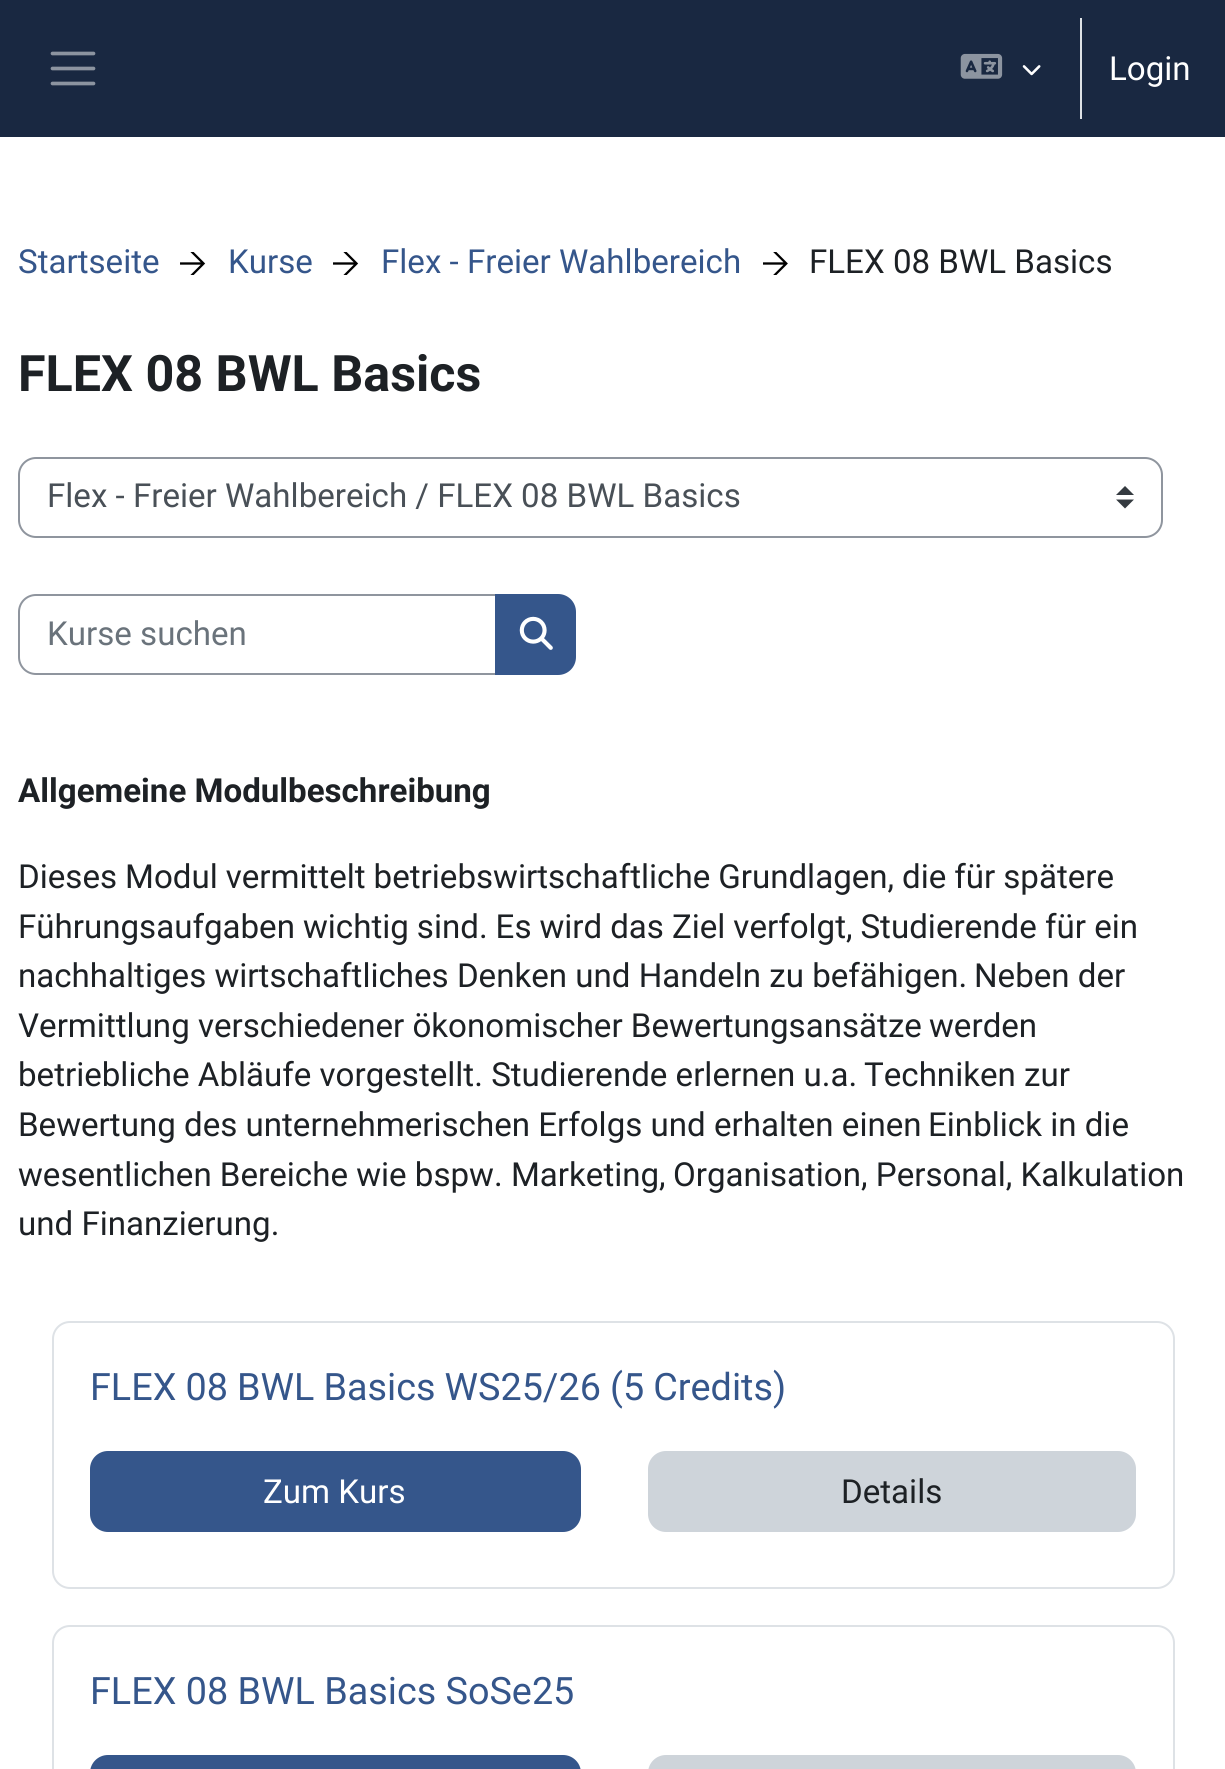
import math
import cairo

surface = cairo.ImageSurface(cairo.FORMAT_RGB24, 1225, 1769)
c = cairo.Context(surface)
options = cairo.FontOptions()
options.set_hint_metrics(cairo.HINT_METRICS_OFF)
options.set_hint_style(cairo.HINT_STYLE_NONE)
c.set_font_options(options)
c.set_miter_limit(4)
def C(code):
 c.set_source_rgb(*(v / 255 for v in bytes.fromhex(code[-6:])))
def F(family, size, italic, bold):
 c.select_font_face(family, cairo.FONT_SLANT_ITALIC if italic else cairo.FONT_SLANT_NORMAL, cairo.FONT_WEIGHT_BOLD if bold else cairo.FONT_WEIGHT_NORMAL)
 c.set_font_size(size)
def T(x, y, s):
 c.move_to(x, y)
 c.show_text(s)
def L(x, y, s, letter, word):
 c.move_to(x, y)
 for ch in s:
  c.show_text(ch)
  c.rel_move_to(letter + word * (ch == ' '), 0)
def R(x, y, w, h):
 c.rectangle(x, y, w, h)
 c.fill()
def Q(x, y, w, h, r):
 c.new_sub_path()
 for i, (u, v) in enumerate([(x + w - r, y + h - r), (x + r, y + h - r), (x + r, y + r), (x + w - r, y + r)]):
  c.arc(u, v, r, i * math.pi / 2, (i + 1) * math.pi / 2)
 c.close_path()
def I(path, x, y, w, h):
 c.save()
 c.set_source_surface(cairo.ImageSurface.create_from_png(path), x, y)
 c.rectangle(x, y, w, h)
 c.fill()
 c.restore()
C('ffffff')
c.paint()
C('192841')
R(0,0,1225,137)
c.new_path()
c.move_to(52.5,53.5)
c.line_to(93.5,53.5)
c.move_to(52.5,68.5)
c.line_to(93.5,68.5)
c.move_to(52.5,83.5)
c.line_to(93.5,83.5)
C('8c94a0')
c.set_line_width(3.7)
c.set_line_cap(cairo.LINE_CAP_ROUND)
c.stroke()
I('1.png',960,53,43,26)
I('2.png',1022,65,19,11)
C('dee2e6')
R(1080,18,2,101)
F('Roboto',33.1,0,0)
C('ffffff')
T(1109,80,'Login')
C('35568b')
T(18,273,'Startseite')
I('3.png',180,252,26,23)
T(228,273,'Kurse')
I('3.png',333,252,26,23)
T(381,273,'Flex - Freier Wahlbereich')
I('4.png',763,252,25,23)
C('1d2125')
T(809,273,'FLEX 08 BWL Basics')
F('Roboto',50.25,0,1)
T(18,391,'FLEX 08 BWL Basics')
C('343a40')
c.new_path()
c.move_to(1125,486)
c.line_to(1116,495)
c.line_to(1134,495)
c.close_path()
c.move_to(1125,508.5)
c.line_to(1116,499.5)
c.line_to(1134,499.5)
c.close_path()
c.fill()
Q(19,458,1143,79,17)
C('8f959e')
c.set_line_width(2)
c.set_line_cap(cairo.LINE_CAP_BUTT)
c.stroke()
F('Roboto',33.1,0,0)
C('495057')
T(47,507,'Flex - Freier Wahlbereich / FLEX 08 BWL Basics')
c.new_path()
c.move_to(36,595)
c.line_to(496,595)
c.line_to(496,674)
c.line_to(36,674)
c.curve_to(26.5,674,19,666.5,19,657)
c.line_to(19,612)
c.curve_to(19,602.5,26.5,595,36,595)
c.close_path()
C('8f959e')
c.stroke()
C('6a737b')
T(47,645,'Kurse suchen')
C('35568b')
c.new_path()
c.move_to(496,595)
c.line_to(558,595)
c.curve_to(567.5,595,575,602.5,575,612)
c.line_to(575,657)
c.curve_to(575,666.5,567.5,674,558,674)
c.line_to(496,674)
c.close_path()
c.fill_preserve()
c.stroke()
I('5.png',519,616,34,34)
F('Roboto',33.1,0,1)
C('1d2125')
T(18,802,'Allgemeine Modulbeschreibung')
F('Roboto',33.1,0,0)
T(18,888,'Dieses')
L(125,888,'Modul vermittelt betriebswirtschaftliche Grundlagen, die für spätere',0,-.25)
L(18,938,'Führungsaufgaben wichtig sind. Es wird das Ziel verfolgt, Studierende',0,-.25)
T(1045,938,'für ein')
T(18,987,'nachhaltiges wirtschaftliches Denken und Handeln zu befähigen.')
T(974,987,'Neben der')
T(18,1037,'Vermittlung verschiedener ökonomischer Bewertungsansätze')
T(929,1037,'werden')
T(18,1086,'betriebliche Abläufe vorgestellt. Studierende erlernen u.a.')
T(864,1086,'Techniken zur')
T(18,1136,'Bewertung des unternehmerischen Erfolgs und erhalten einen')
T(928,1136,'Einblick in die')
T(18,1186,'wesentlichen Bereiche wie bspw. Marketing,')
T(673,1186,'Organisation, Personal, Kalkulation')
T(18,1235,'und Finanzierung.')
Q(53,1322,1121,266,17)
C('dee2e6')
c.stroke()
F('Roboto',37.75,0,0)
C('35568b')
L(90,1400,'FLEX 08 BWL Basics WS25/26 (5 Credits)',0,-.25)
Q(91,1452,489,79,17)
c.fill_preserve()
c.stroke()
F('Roboto',33.1,0,0)
C('ffffff')
T(263,1503,'Zum Kurs')
C('ced4da')
Q(649,1452,486,79,17)
c.fill_preserve()
c.stroke()
C('1d2125')
T(841,1503,'Details')
Q(53,1626,1121,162,17)
C('dee2e6')
c.stroke()
F('Roboto',37.75,0,0)
C('35568b')
T(90,1704,'FLEX 08 BWL Basics SoSe25')
Q(91,1756,489,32,17)
c.fill_preserve()
c.stroke()
C('ced4da')
Q(649,1756,486,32,17)
c.fill_preserve()
c.stroke()
surface.write_to_png('o.png')
